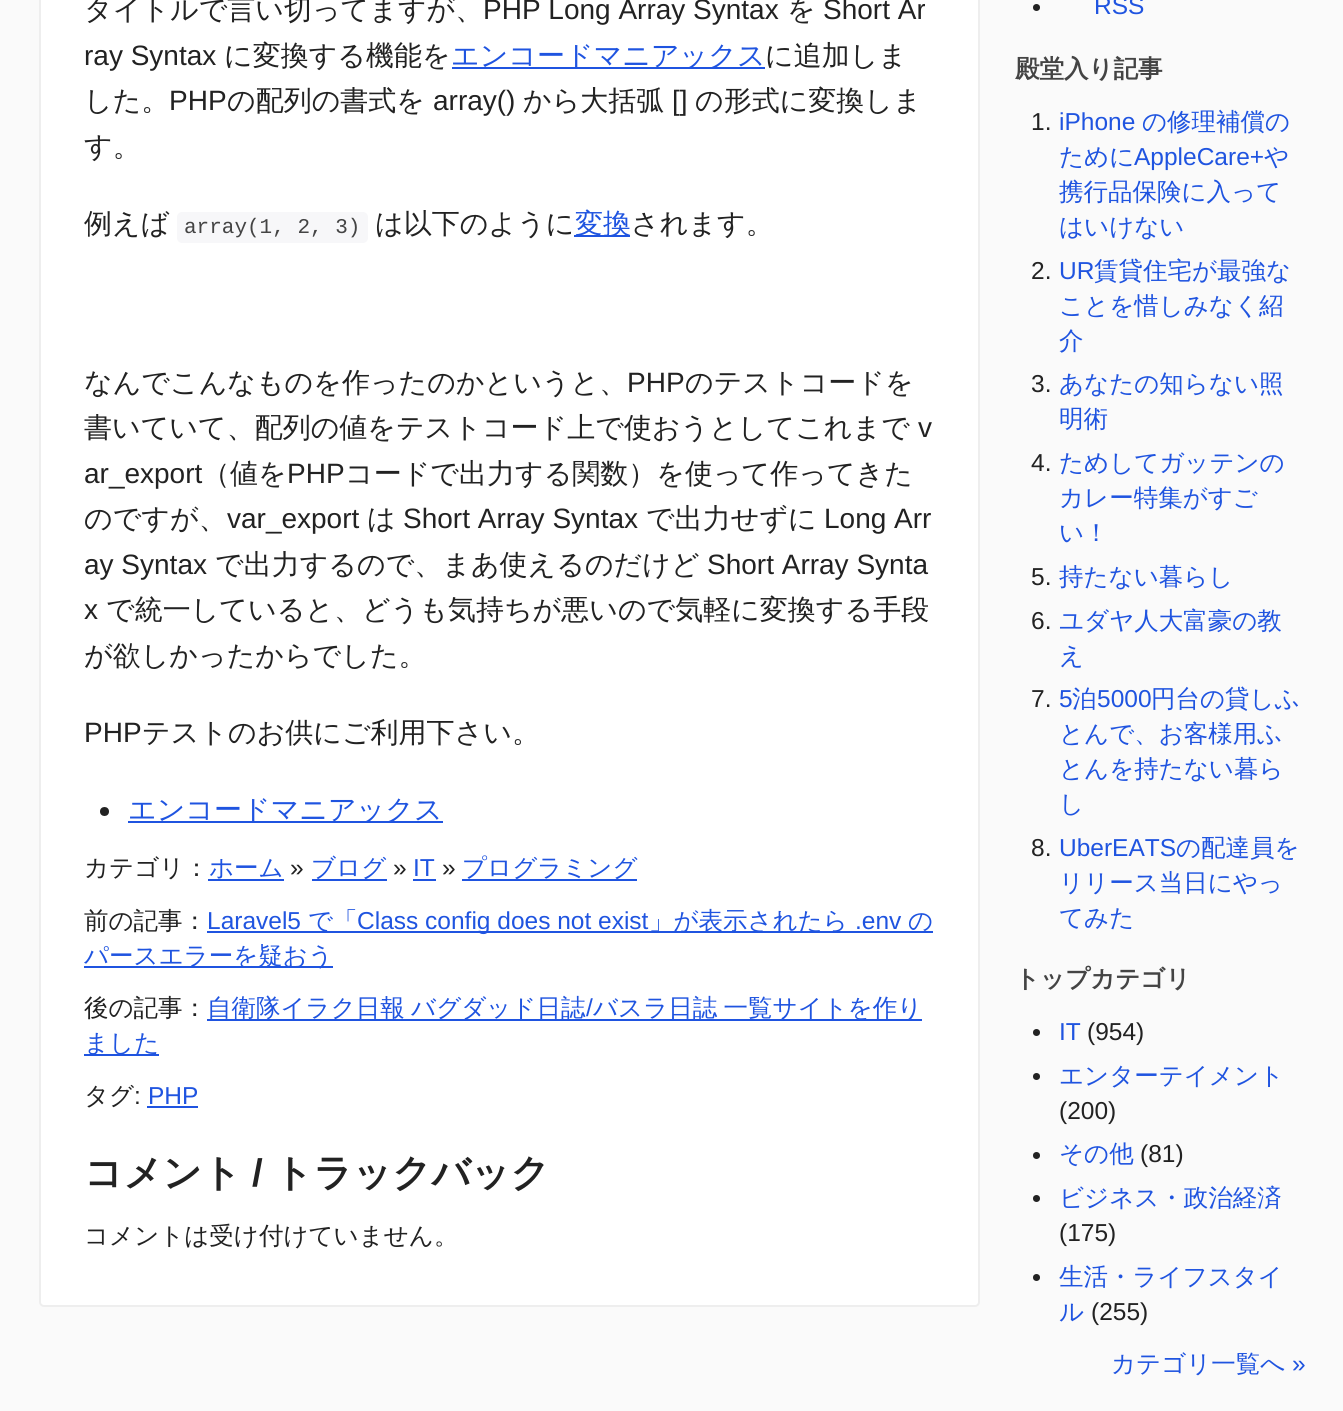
import math
import cairo

surface = cairo.ImageSurface(cairo.FORMAT_RGB24, 1343, 1411)
c = cairo.Context(surface)
options = cairo.FontOptions()
options.set_hint_metrics(cairo.HINT_METRICS_OFF)
options.set_hint_style(cairo.HINT_STYLE_NONE)
c.set_font_options(options)
c.set_miter_limit(4)
def C(code):
 c.set_source_rgb(*(v / 255 for v in bytes.fromhex(code[-6:])))
def F(family, size, italic, bold):
 c.select_font_face(family, cairo.FONT_SLANT_ITALIC if italic else cairo.FONT_SLANT_NORMAL, cairo.FONT_WEIGHT_BOLD if bold else cairo.FONT_WEIGHT_NORMAL)
 c.set_font_size(size)
def T(x, y, s):
 c.move_to(x, y)
 c.show_text(s)
def L(x, y, s, letter, word):
 c.move_to(x, y)
 for ch in s:
  c.show_text(ch)
  c.rel_move_to(letter + word * (ch == ' '), 0)
def R(x, y, w, h):
 c.rectangle(x, y, w, h)
 c.fill()
def Q(x, y, w, h, r):
 c.new_sub_path()
 for i, (u, v) in enumerate([(x + w - r, y + h - r), (x + r, y + h - r), (x + r, y + r), (x + w - r, y + r)]):
  c.arc(u, v, r, i * math.pi / 2, (i + 1) * math.pi / 2)
 c.close_path()
C('fafafa')
c.paint()
C('ffffff')
Q(40,-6,939,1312,4)
c.fill_preserve()
C('eeeeee')
c.stroke()
F('WenQuanYi Zen Hei Medium',28,0,0)
C('222222')
T(84,19,'タイトルで言い切ってますが、')
F('Liberation Sans',28,0,0)
T(483,19,'PHP Long Array Syntax')
F('WenQuanYi Zen Hei Medium',28,0,0)
T(787,19,'を')
F('Liberation Sans',28,0,0)
T(823,19,'Short Ar')
T(84,65,'ray Syntax')
F('WenQuanYi Zen Hei Medium',28,0,0)
T(224,65,'に変換する機能を')
C('1f54e0')
R(452,67,313,2)
T(451,65,'エンコードマニアックス')
C('222222')
T(765,65,'に追加しま')
T(84,110,'した。')
F('Liberation Sans',28,0,0)
T(169,110,'PHP')
F('WenQuanYi Zen Hei Medium',28,0,0)
T(227,110,'の配列の書式を')
F('Liberation Sans',28,0,0)
T(433,110,'array()')
F('WenQuanYi Zen Hei Medium',28,0,0)
T(523,110,'から大括弧')
F('Liberation Sans',28,0,0)
T(672,110,'[]')
F('WenQuanYi Zen Hei Medium',28,0,0)
T(695,110,'の形式に変換しま')
T(84,156,'す。')
T(84,233,'例えば')
C('f7f7f9')
Q(177,212,191,31,5)
c.fill()
F('Liberation Mono',21,0,0)
C('444444')
T(184,233,'array(1, 2, 3)')
F('WenQuanYi Zen Hei Medium',28,0,0)
C('222222')
T(375,233,'は以下のように')
C('1f54e0')
R(574,235,56,2)
T(575,233,'変換')
C('222222')
T(631,233,'されます。')
T(84,392,'なんでこんなものを作ったのかというと、')
F('Liberation Sans',28,0,0)
T(627,392,'PHP')
F('WenQuanYi Zen Hei Medium',28,0,0)
T(685,392,'のテストコードを')
T(84,437,'書いていて、配列の値をテストコード上で使おうとしてこれまで')
F('Liberation Sans',28,0,0)
T(918,437,'v')
T(84,483,'ar_export')
F('WenQuanYi Zen Hei Medium',28,0,0)
T(202,483,'（値を')
F('Liberation Sans',28,0,0)
T(287,483,'PHP')
F('WenQuanYi Zen Hei Medium',28,0,0)
T(345,483,'コードで出力する関数）を使って作ってきた')
T(84,528,'のですが、')
F('Liberation Sans',28,0,0)
T(227,528,'var_export')
F('WenQuanYi Zen Hei Medium',28,0,0)
T(367,528,'は')
F('Liberation Sans',28,0,0)
T(403,528,'Short Array Syntax')
F('WenQuanYi Zen Hei Medium',28,0,0)
T(646,528,'で出力せずに')
F('Liberation Sans',28,0,0)
T(824,528,'Long Arr')
T(84,574,'ay Syntax')
F('WenQuanYi Zen Hei Medium',28,0,0)
T(215,574,'で出力するので、まあ使えるのだけど')
F('Liberation Sans',28,0,0)
T(707,574,'Short Array Synta')
T(84,619,'x')
F('WenQuanYi Zen Hei Medium',28,0,0)
T(106,619,'で統一していると、どうも気持ちが悪いので気軽に変換する手段')
T(84,665,'が欲しかったからでした。')
F('Liberation Sans',28,0,0)
T(84,742,'PHP')
F('WenQuanYi Zen Hei Medium',28,0,0)
T(142,742,'テストのお供にご利用下さい。')
c.new_path()
c.arc(104.5,811.5,4.5,0,2 * math.pi)
c.fill()
C('1f54e0')
R(128,821,315,2)
T(128,819,'エンコードマニアックス')
F('WenQuanYi Zen Hei Medium',24.5,0,0)
C('222222')
T(84,876,'カテゴリ：')
C('1f54e0')
T(209,876,'ホーム')
R(208,879,76,2)
F('Liberation Sans',24.5,0,0)
C('222222')
T(290,876,'»')
C('1f54e0')
R(312,879,75,2)
F('WenQuanYi Zen Hei Medium',24.5,0,0)
T(311,876,'ブログ')
F('Liberation Sans',24.5,0,0)
C('222222')
T(393,876,'»')
C('1f54e0')
T(413,876,'IT')
R(413,879,23,2)
C('222222')
T(442,876,'»')
C('1f54e0')
R(462,879,175,2)
F('WenQuanYi Zen Hei Medium',24.5,0,0)
T(462,876,'プログラミング')
C('222222')
T(84,929,'前の記事：')
F('Liberation Sans',24.5,0,0)
C('1f54e0')
T(207,929,'Laravel5')
R(207,931,726,2)
F('WenQuanYi Zen Hei Medium',24.5,0,0)
T(308,929,'で「')
F('Liberation Sans',24.5,0,0)
T(357,929,'Class config does not exist')
F('WenQuanYi Zen Hei Medium',24.5,0,0)
T(649,929,'」が表示されたら')
F('Liberation Sans',24.5,0,0)
T(855,929,'.env')
F('WenQuanYi Zen Hei Medium',24.5,0,0)
T(908,929,'の')
R(84,966,249,2)
T(84,964,'パースエラーを疑おう')
C('222222')
T(84,1016,'後の記事：')
C('1f54e0')
R(207,1019,715,2)
L(207,1016,'自衛隊イラク日報 バグダッド日誌',0,-1)
F('Liberation Sans',24.5,0,0)
T(586,1016,'/')
F('WenQuanYi Zen Hei Medium',24.5,0,0)
L(593,1016,'バスラ日誌 一覧サイトを作り',0,-1)
R(84,1054,75,2)
T(84,1051,'ました')
C('222222')
T(84,1104,'タグ')
F('Liberation Sans',24.5,0,0)
T(134,1104,':')
C('1f54e0')
T(148,1104,'PHP')
R(147,1106,51,2)
F('WenQuanYi Zen Hei',38.5,0,1)
C('222222')
T(84,1186,'コメント')
F('Liberation Sans',38.5,0,1)
T(252,1186,'/')
F('WenQuanYi Zen Hei',38.5,0,1)
T(274,1186,'トラックバック')
F('WenQuanYi Zen Hei Medium',24.5,0,0)
T(84,1244,'コメントは受け付けていません。')
c.new_path()
c.arc(1036.5,7.5,3.5,0,2 * math.pi)
c.fill()
F('Liberation Sans',24.5,0,0)
C('1f54e0')
T(1094,14,'RSS')
F('WenQuanYi Zen Hei',24.5,0,1)
C('444444')
T(1015,77,'殿堂入り記事')
F('Liberation Sans',24.5,0,0)
C('222222')
T(1031,130,'1.')
C('1f54e0')
T(1059,130,'iPhone')
F('WenQuanYi Zen Hei Medium',24.5,0,0)
T(1142,130,'の修理補償の')
T(1059,165,'ために')
F('Liberation Sans',24.5,0,0)
T(1134,165,'AppleCare+')
F('WenQuanYi Zen Hei Medium',24.5,0,0)
T(1264,165,'や')
T(1059,200,'携行品保険に入って')
T(1059,235,'はいけない')
F('Liberation Sans',24.5,0,0)
C('222222')
T(1031,279,'2.')
C('1f54e0')
T(1059,279,'UR')
F('WenQuanYi Zen Hei Medium',24.5,0,0)
T(1094,279,'賃貸住宅が最強な')
T(1059,314,'ことを惜しみなく紹')
T(1059,349,'介')
F('Liberation Sans',24.5,0,0)
C('222222')
T(1031,392,'3.')
F('WenQuanYi Zen Hei Medium',24.5,0,0)
C('1f54e0')
T(1059,392,'あなたの知らない照')
T(1059,427,'明術')
F('Liberation Sans',24.5,0,0)
C('222222')
T(1031,471,'4.')
F('WenQuanYi Zen Hei Medium',24.5,0,0)
C('1f54e0')
T(1059,471,'ためしてガッテンの')
T(1059,506,'カレー特集がすご')
T(1059,541,'い！')
F('Liberation Sans',24.5,0,0)
C('222222')
T(1031,585,'5.')
F('WenQuanYi Zen Hei Medium',24.5,0,0)
C('1f54e0')
T(1059,585,'持たない暮らし')
F('Liberation Sans',24.5,0,0)
C('222222')
T(1031,629,'6.')
F('WenQuanYi Zen Hei Medium',24.5,0,0)
C('1f54e0')
T(1059,629,'ユダヤ人大富豪の教')
T(1059,664,'え')
F('Liberation Sans',24.5,0,0)
C('222222')
T(1031,707,'7.')
C('1f54e0')
T(1059,707,'5')
F('WenQuanYi Zen Hei Medium',24.5,0,0)
T(1072,707,'泊')
F('Liberation Sans',24.5,0,0)
T(1097,707,'5000')
F('WenQuanYi Zen Hei Medium',24.5,0,0)
T(1151,707,'円台の貸しふ')
T(1059,742,'とんで、お客様用ふ')
T(1059,777,'とんを持たない暮ら')
T(1059,812,'し')
F('Liberation Sans',24.5,0,0)
C('222222')
T(1031,856,'8.')
C('1f54e0')
T(1059,856,'UberEATS')
F('WenQuanYi Zen Hei Medium',24.5,0,0)
T(1176,856,'の配達員を')
T(1059,891,'リリース当日にやっ')
T(1059,926,'てみた')
F('WenQuanYi Zen Hei',24.5,0,1)
C('444444')
T(1015,987,'トップカテゴリ')
C('222222')
c.new_path()
c.arc(1036.5,1032.5,3.5,0,2 * math.pi)
c.fill()
F('Liberation Sans',24.5,0,0)
C('1f54e0')
T(1059,1040,'IT')
C('222222')
T(1087,1040,'(954)')
c.new_path()
c.arc(1036.5,1076.5,3.5,0,2 * math.pi)
c.fill()
F('WenQuanYi Zen Hei Medium',24.5,0,0)
C('1f54e0')
T(1059,1084,'エンターテイメント')
F('Liberation Sans',24.5,0,0)
C('222222')
T(1059,1119,'(200)')
c.new_path()
c.arc(1036.5,1155.5,3.5,0,2 * math.pi)
c.fill()
F('WenQuanYi Zen Hei Medium',24.5,0,0)
C('1f54e0')
T(1059,1162,'その他')
F('Liberation Sans',24.5,0,0)
C('222222')
T(1140,1162,'(81)')
c.new_path()
c.arc(1036.5,1198.5,3.5,0,2 * math.pi)
c.fill()
F('WenQuanYi Zen Hei Medium',24.5,0,0)
C('1f54e0')
T(1059,1206,'ビジネス・政治経済')
F('Liberation Sans',24.5,0,0)
C('222222')
T(1059,1241,'(175)')
c.new_path()
c.arc(1036.5,1277.5,3.5,0,2 * math.pi)
c.fill()
F('WenQuanYi Zen Hei Medium',24.5,0,0)
C('1f54e0')
T(1059,1285,'生活・ライフスタイ')
T(1059,1320,'ル')
F('Liberation Sans',24.5,0,0)
C('222222')
T(1091,1320,'(255)')
F('WenQuanYi Zen Hei Medium',24.5,0,0)
C('1f54e0')
T(1111,1372,'カテゴリ一覧へ')
F('Liberation Sans',24.5,0,0)
T(1292,1372,'»')
surface.write_to_png('o.png')
